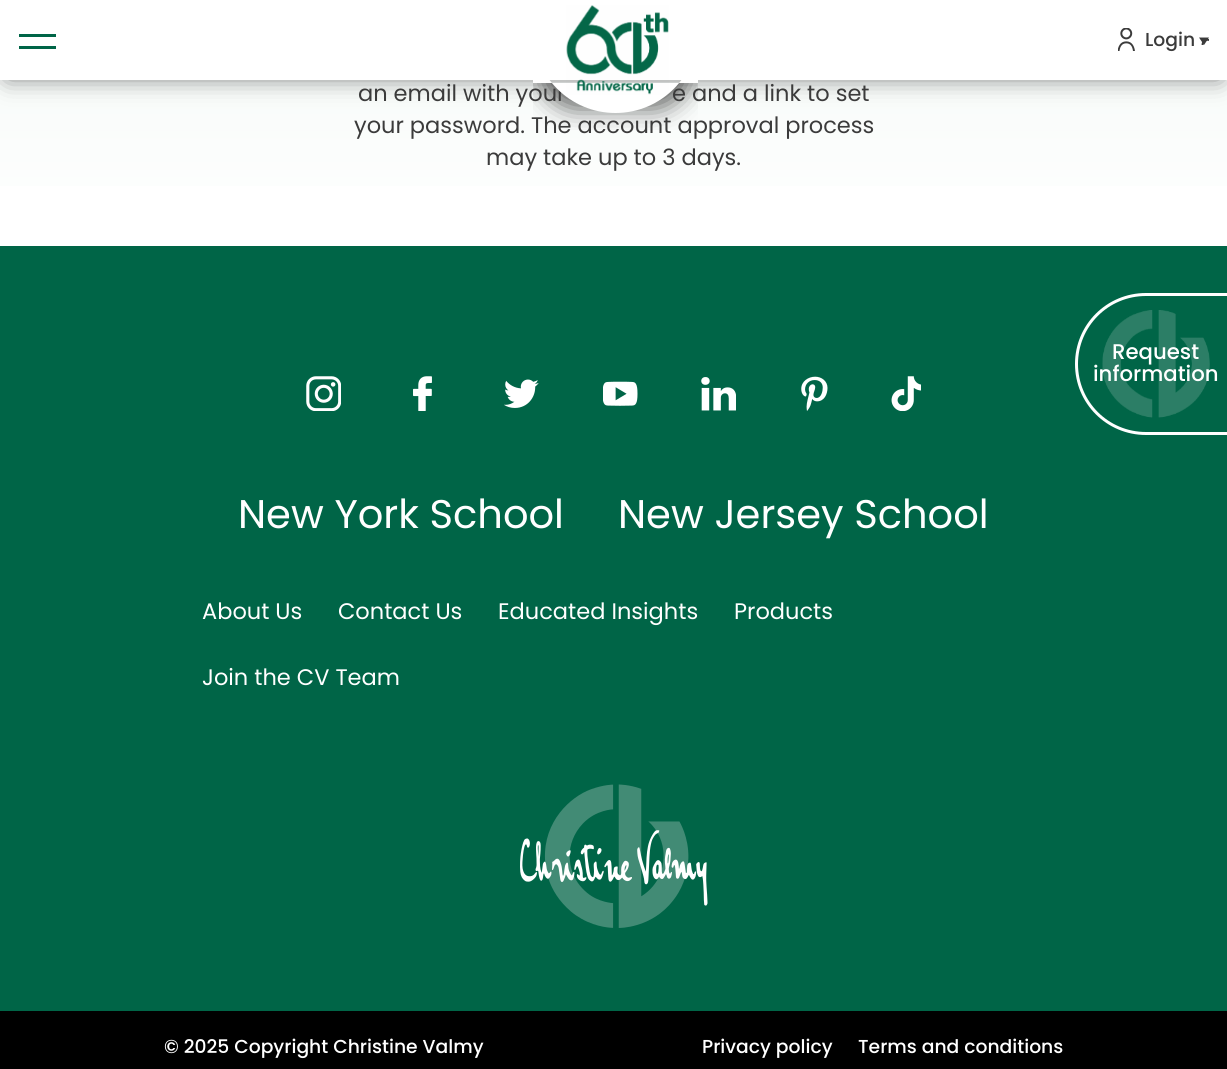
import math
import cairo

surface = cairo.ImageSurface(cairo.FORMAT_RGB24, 1227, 1069)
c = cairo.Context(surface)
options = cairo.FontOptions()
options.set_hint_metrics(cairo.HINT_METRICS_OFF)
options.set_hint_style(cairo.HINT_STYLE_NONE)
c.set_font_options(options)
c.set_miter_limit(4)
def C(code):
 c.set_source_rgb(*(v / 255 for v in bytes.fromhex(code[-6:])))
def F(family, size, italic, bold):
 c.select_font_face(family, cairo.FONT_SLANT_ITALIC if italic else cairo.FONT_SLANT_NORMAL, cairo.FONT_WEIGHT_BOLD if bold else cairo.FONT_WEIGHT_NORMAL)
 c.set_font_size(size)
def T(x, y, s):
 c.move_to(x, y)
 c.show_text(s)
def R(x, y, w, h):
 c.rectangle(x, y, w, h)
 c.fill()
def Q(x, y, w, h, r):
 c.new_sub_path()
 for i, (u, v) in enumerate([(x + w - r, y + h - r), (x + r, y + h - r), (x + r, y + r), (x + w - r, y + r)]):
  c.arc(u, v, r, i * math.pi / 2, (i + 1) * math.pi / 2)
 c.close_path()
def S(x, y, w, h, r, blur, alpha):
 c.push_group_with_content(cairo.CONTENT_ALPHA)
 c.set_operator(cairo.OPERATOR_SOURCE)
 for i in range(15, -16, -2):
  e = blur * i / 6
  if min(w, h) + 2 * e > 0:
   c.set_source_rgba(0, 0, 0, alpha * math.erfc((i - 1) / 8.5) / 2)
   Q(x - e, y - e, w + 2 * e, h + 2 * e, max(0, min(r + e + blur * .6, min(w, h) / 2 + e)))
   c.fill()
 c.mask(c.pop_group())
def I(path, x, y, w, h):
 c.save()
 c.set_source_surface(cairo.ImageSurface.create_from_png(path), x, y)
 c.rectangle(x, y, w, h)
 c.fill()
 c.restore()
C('ffffff')
c.paint()
gradient = cairo.LinearGradient(614,-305,614,246)
gradient.add_color_stop_rgba(0,0.91,0.953,0.929,1)
gradient.add_color_stop_rgba(1,1,1,1,1)
c.set_source(gradient)
R(0,80,1227,106)
C('000000')
S(8,11,1212,65,0,12.5,.6)
C('ffffff')
R(0,0,1227,80)
c.save()
c.rectangle(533,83,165,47)
c.clip()
C('000000')
S(540,24,150,85,75,12.5,.6)
c.restore()
F('Poppins',22.5,0,0)
C('3b3b3b')
T(358,101,'an email with your')
T(672,101,'e and a link to set')
C('ffffff')
c.new_path()
c.move_to(533,83)
c.line_to(698,83)
c.line_to(698,30.5)
c.curve_to(698,76,661,113,615.5,113)
c.curve_to(570,113,533,76,533,30.5)
c.close_path()
c.fill()
C('006547')
R(19,34,37,3)
R(19,46,37,3)
I('1.png',566,5,103,90)
I('2.png',1118,28,91,23)
F('Poppins Medium',18.75,0,0)
C('3b3b3b')
T(1145,46,'Login')
c.new_path()
c.move_to(1199,37.5)
c.line_to(1209,37.5)
c.line_to(1204,45)
c.close_path()
c.fill()
F('Poppins',22.5,0,0)
T(354,133,'your password. The account approval process')
T(486,165,'may take up to 3 days.')
C('006547')
R(0,246,1227,765)
c.new_path()
c.move_to(1146,294.5)
c.line_to(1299.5,294.5)
c.line_to(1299.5,433.5)
c.line_to(1146,433.5)
c.curve_to(1107.5,433.5,1076.5,402.5,1076.5,364)
c.curve_to(1076.5,325.5,1107.5,294.5,1146,294.5)
c.close_path()
C('ffffff')
c.set_line_width(3)
c.stroke()
I('3.png',1102,310,108,108)
F('Poppins Medium',21.25,0,0)
T(1112,359,'Request')
T(1093,381,'information')
I('4.png',306,376,35,35)
I('5.png',413,376,19,35)
I('6.png',504,379,35,29)
I('7.png',603,381,35,25)
I('8.png',701,377,35,34)
I('9.png',801,376,27,35)
I('10.png',891,376,30,35)
F('Poppins',40,0,0)
T(238,528,'New York School')
T(618,528,'New Jersey School')
F('Poppins',22.5,0,0)
T(202,619,'About Us')
T(338,619,'Contact Us')
T(498,619,'Educated Insights')
T(734,619,'Products')
T(202,685,'Join the CV Team')
I('11.png',520,784,188,144)
C('000000')
R(0,1011,1227,58)
F('Poppins Medium',18.75,0,0)
C('ffffff')
T(164,1053,'© 2025 Copyright Christine Valmy')
T(702,1053,'Privacy policy')
T(858,1053,'Terms and conditions')
surface.write_to_png('o.png')
